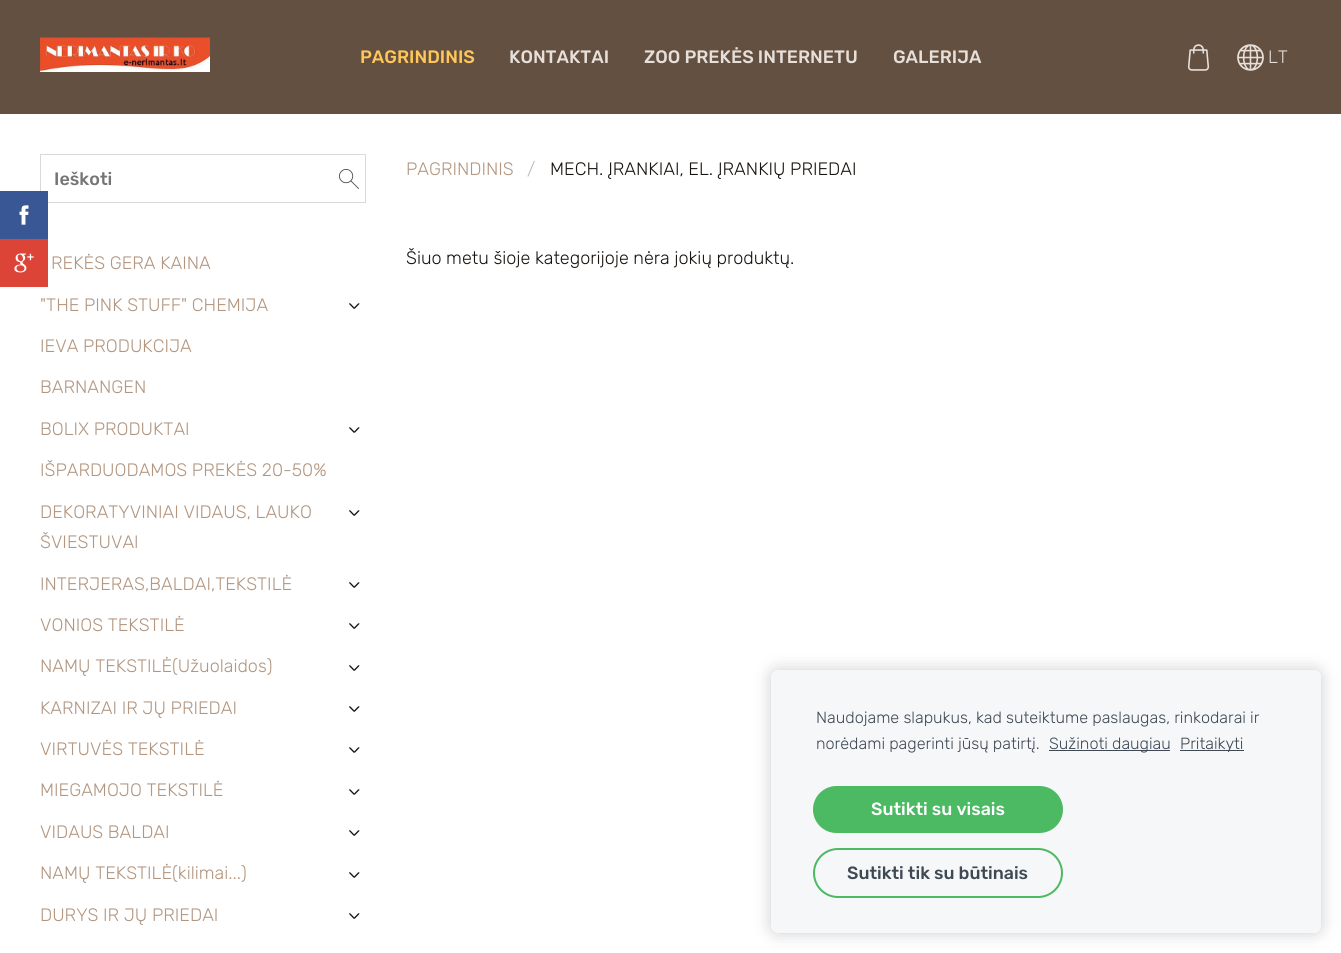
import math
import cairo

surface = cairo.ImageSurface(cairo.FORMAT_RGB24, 1341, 953)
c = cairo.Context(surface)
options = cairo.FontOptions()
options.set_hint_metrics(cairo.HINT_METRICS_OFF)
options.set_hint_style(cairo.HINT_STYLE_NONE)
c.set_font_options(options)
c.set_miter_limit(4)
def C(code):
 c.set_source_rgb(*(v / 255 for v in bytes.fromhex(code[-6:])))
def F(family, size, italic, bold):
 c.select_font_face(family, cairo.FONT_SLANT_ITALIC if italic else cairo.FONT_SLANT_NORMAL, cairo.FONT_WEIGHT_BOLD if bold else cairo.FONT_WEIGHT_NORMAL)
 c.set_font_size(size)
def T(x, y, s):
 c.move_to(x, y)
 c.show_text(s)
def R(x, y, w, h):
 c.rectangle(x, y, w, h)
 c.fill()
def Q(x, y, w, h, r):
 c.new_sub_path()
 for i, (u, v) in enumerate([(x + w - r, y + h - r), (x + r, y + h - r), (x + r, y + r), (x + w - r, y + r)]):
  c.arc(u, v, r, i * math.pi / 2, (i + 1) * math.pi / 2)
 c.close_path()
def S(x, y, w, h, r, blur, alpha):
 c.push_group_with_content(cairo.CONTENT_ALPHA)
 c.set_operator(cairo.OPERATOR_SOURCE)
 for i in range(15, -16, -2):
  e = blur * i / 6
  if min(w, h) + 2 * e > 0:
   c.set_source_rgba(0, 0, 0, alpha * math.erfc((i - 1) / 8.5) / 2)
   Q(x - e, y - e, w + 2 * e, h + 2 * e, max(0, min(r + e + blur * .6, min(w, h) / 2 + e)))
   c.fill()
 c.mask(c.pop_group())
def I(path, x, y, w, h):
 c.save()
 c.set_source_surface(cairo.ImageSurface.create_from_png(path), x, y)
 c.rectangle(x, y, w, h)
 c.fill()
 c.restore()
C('ffffff')
c.paint()
c.rectangle(40.5,154.5,325,48)
C('d9d9d9')
c.set_line_width(1)
c.stroke()
C('3a5795')
R(0,191,48,48)
I('1.png',19,205,10,20)
C('db4437')
R(0,239,48,48)
I('2.png',14,253,20,20)
C('645040')
R(0,0,1341,114)
I('3.png',40,37,170,35)
F('Rubik Medium',18,0,0)
C('ffc759')
T(360,63,'PAGRINDINIS')
C('e7e0da')
T(509,63,'KONTAKTAI')
T(644,63,'ZOO PREKĖS INTERNETU')
T(893,63,'GALERIJA')
I('4.png',1187,44,23,27)
I('5.png',1237,44,27,27)
F('Rubik Light',18,0,0)
T(1268,63,'LT')
F('Rubik Medium',18,0,0)
C('757575')
T(54,185,'Ieškoti')
I('6.png',339,169,20,20)
F('Rubik Light',18,0,0)
C('b29680')
T(51,269,'REKĖS GERA KAINA')
T(40,311,'"THE PINK STUFF" CHEMIJA')
F('Rubik Light',22,0,0)
C('191410')
c.save()
c.translate(347,302)
c.rotate(90 * math.pi / 180)
T(0,0,'›')
c.restore()
F('Rubik Light',18,0,0)
C('b29680')
T(40,352,'IEVA PRODUKCIJA')
T(40,393,'BARNANGEN')
T(40,435,'BOLIX PRODUKTAI')
F('Rubik Light',22,0,0)
C('191410')
c.save()
c.translate(347,426)
c.rotate(90 * math.pi / 180)
T(0,0,'›')
c.restore()
F('Rubik Light',18,0,0)
C('b29680')
T(40,476,'IŠPARDUODAMOS PREKĖS 20-50%')
T(40,518,'DEKORATYVINIAI VIDAUS, LAUKO')
T(40,548,'ŠVIESTUVAI')
F('Rubik Light',22,0,0)
C('191410')
c.save()
c.translate(347,509)
c.rotate(90 * math.pi / 180)
T(0,0,'›')
c.restore()
F('Rubik Light',18,0,0)
C('b29680')
T(40,590,'INTERJERAS,BALDAI,TEKSTILĖ')
F('Rubik Light',22,0,0)
C('191410')
c.save()
c.translate(347,581)
c.rotate(90 * math.pi / 180)
T(0,0,'›')
c.restore()
F('Rubik Light',18,0,0)
C('b29680')
T(40,631,'VONIOS TEKSTILĖ')
F('Rubik Light',22,0,0)
C('191410')
c.save()
c.translate(347,622)
c.rotate(90 * math.pi / 180)
T(0,0,'›')
c.restore()
F('Rubik Light',18,0,0)
C('b29680')
T(40,672,'NAMŲ TEKSTILĖ(Užuolaidos)')
F('Rubik Light',22,0,0)
C('191410')
c.save()
c.translate(347,664)
c.rotate(90 * math.pi / 180)
T(0,0,'›')
c.restore()
F('Rubik Light',18,0,0)
C('b29680')
T(40,714,'KARNIZAI IR JŲ PRIEDAI')
F('Rubik Light',22,0,0)
C('191410')
c.save()
c.translate(347,705)
c.rotate(90 * math.pi / 180)
T(0,0,'›')
c.restore()
F('Rubik Light',18,0,0)
C('b29680')
T(40,755,'VIRTUVĖS TEKSTILĖ')
F('Rubik Light',22,0,0)
C('191410')
c.save()
c.translate(347,746)
c.rotate(90 * math.pi / 180)
T(0,0,'›')
c.restore()
F('Rubik Light',18,0,0)
C('b29680')
T(40,796,'MIEGAMOJO TEKSTILĖ')
F('Rubik Light',22,0,0)
C('191410')
c.save()
c.translate(347,788)
c.rotate(90 * math.pi / 180)
T(0,0,'›')
c.restore()
F('Rubik Light',18,0,0)
C('b29680')
T(40,838,'VIDAUS BALDAI')
F('Rubik Light',22,0,0)
C('191410')
c.save()
c.translate(347,829)
c.rotate(90 * math.pi / 180)
T(0,0,'›')
c.restore()
F('Rubik Light',18,0,0)
C('b29680')
T(40,879,'NAMŲ TEKSTILĖ(kilimai...)')
F('Rubik Light',22,0,0)
C('191410')
c.save()
c.translate(347,871)
c.rotate(90 * math.pi / 180)
T(0,0,'›')
c.restore()
F('Rubik Light',18,0,0)
C('b29680')
T(40,921,'DURYS IR JŲ PRIEDAI')
F('Rubik Light',22,0,0)
C('191410')
c.save()
c.translate(347,912)
c.rotate(90 * math.pi / 180)
T(0,0,'›')
c.restore()
F('Rubik Light',18,0,0)
C('b29680')
T(406,175,'PAGRINDINIS')
C('bab9b7')
T(527,175,'/')
C('191410')
T(550,175,'MECH. ĮRANKIAI, EL. ĮRANKIŲ PRIEDAI')
T(406,264,'Šiuo metu šioje kategorijoje nėra jokių produktų.')
C('000000')
S(771,670,550,263,7,8.5,.2)
C('f6f7f9')
Q(771,670,550,263,7)
c.fill()
F('Rubik Light',16.2,0,0)
C('3f4954')
T(816,723,'Naudojame slapukus, kad suteiktume paslaugas, rinkodarai ir')
T(816,749,'norėdami pagerinti jūsų patirtį.')
R(1049,750,121,1)
T(1049,749,'Sužinoti daugiau')
R(1180,750,64,1)
T(1180,749,'Pritaikyti')
C('4cb963')
Q(813,786,250,47,23.5)
c.fill()
F('Rubik Medium',17.75,0,0)
C('ffffff')
T(871,815,'Sutikti su visais')
Q(814,849,248,48,24)
C('4cb963')
c.set_line_width(2)
c.stroke()
C('3f4954')
T(847,879,'Sutikti tik su būtinais')
surface.write_to_png('o.png')
